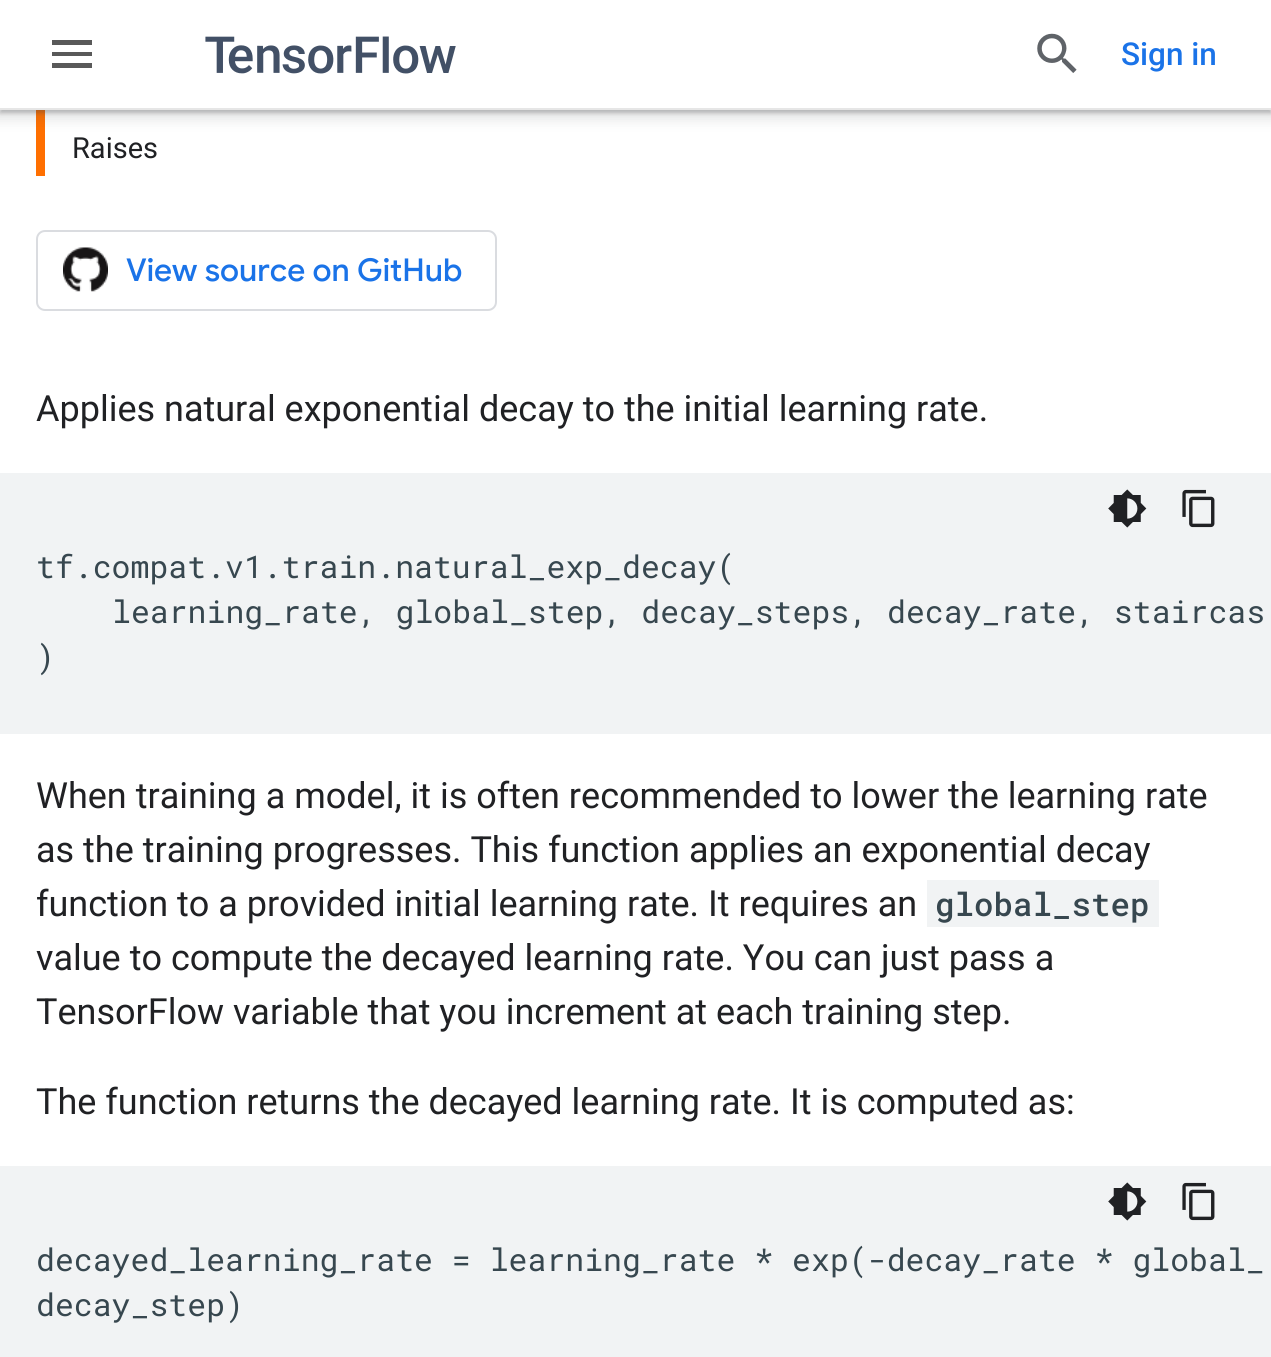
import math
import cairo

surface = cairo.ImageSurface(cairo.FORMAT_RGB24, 1271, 1357)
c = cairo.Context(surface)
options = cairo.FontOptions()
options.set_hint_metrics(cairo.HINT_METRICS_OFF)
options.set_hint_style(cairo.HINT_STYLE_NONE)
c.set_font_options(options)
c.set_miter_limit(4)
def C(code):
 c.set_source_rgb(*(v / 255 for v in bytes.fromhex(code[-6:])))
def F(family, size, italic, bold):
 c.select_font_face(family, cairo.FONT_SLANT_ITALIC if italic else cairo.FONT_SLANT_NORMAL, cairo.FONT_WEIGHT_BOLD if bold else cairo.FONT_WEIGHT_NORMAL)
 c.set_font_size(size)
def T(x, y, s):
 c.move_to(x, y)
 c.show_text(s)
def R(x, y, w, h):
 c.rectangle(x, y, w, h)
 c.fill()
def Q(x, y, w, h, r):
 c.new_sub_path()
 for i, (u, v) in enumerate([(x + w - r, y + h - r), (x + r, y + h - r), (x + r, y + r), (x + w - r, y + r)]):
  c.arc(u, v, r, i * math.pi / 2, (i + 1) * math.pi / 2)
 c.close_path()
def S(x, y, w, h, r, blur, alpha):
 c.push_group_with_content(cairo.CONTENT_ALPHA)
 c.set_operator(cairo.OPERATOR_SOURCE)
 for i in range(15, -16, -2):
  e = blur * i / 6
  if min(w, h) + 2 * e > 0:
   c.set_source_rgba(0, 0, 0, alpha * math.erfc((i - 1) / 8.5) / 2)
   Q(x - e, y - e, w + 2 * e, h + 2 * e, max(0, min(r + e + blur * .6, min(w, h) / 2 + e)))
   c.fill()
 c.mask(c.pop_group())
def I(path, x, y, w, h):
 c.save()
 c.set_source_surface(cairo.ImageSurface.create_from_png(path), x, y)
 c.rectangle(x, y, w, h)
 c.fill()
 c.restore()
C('ffffff')
c.paint()
C('ff6f00')
R(36,110,9,66)
C('3c4043')
S(-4,-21,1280,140,0,7,.15)
S(0,-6,1271,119,0,2,.3)
C('ffffff')
R(0,0,1271,108)
C('e6e6e6')
R(0,108,1271,2)
C('595959')
c.new_path()
c.move_to(52,40)
c.line_to(92,40)
c.line_to(92,45)
c.line_to(52,45)
c.close_path()
c.move_to(52,56)
c.line_to(52,52)
c.line_to(92,52)
c.line_to(92,56)
c.close_path()
c.move_to(52,68)
c.line_to(52,63)
c.line_to(92,63)
c.line_to(92,68)
c.close_path()
c.fill()
I('1.png',205,36,251,38)
I('2.png',1037,33,40,40)
F('Roboto Medium',31.5,0,0)
C('1a73e8')
T(1121,65,'Sign in')
F('Roboto',29,0,0)
C('202124')
T(72,158,'Raises')
Q(37,231,459,79,8)
C('dadce0')
c.stroke()
I('3.png',63,247,45,45)
F('Google Sans Medium',31.5,0,0)
C('1a73e8')
T(126,281,'View source on GitHub')
F('Roboto',36,0,0)
C('202124')
T(36,421,'Applies natural exponential decay to the initial learning rate.')
C('f1f3f4')
R(0,473,1271,261)
I('4.png',1108,489,39,39)
I('5.png',1182,489,33,39)
F('Roboto Mono',31.5,0,0)
C('37474f')
T(36,578,'tf.compat.v1.train.natural_exp_decay(')
T(112,623,'learning_rate, global_step, decay_steps, decay_rate, staircas')
T(36,668,')')
F('Roboto',36,0,0)
C('202124')
T(36,808,'When training a model, it is often recommended to lower the learning rate')
T(36,862,'as the training progresses. This function applies an exponential decay')
T(36,916,'function to a provided initial learning rate. It requires an')
C('f1f3f4')
R(927,880,232,47)
F('Roboto Mono Medium',32.5,0,0)
C('37474f')
T(935,916,'global_step')
F('Roboto',36,0,0)
C('202124')
T(36,970,'value to compute the decayed learning rate. You can just pass a')
T(36,1024,'TensorFlow variable that you increment at each training step.')
T(36,1114,'The function returns the decayed learning rate. It is computed as:')
C('f1f3f4')
R(0,1166,1271,191)
I('4.png',1108,1182,39,39)
I('5.png',1182,1182,33,39)
F('Roboto Mono',31.5,0,0)
C('37474f')
T(36,1271,'decayed_learning_rate = learning_rate * exp(-decay_rate * global_')
T(36,1316,'decay_step)')
surface.write_to_png('o.png')
